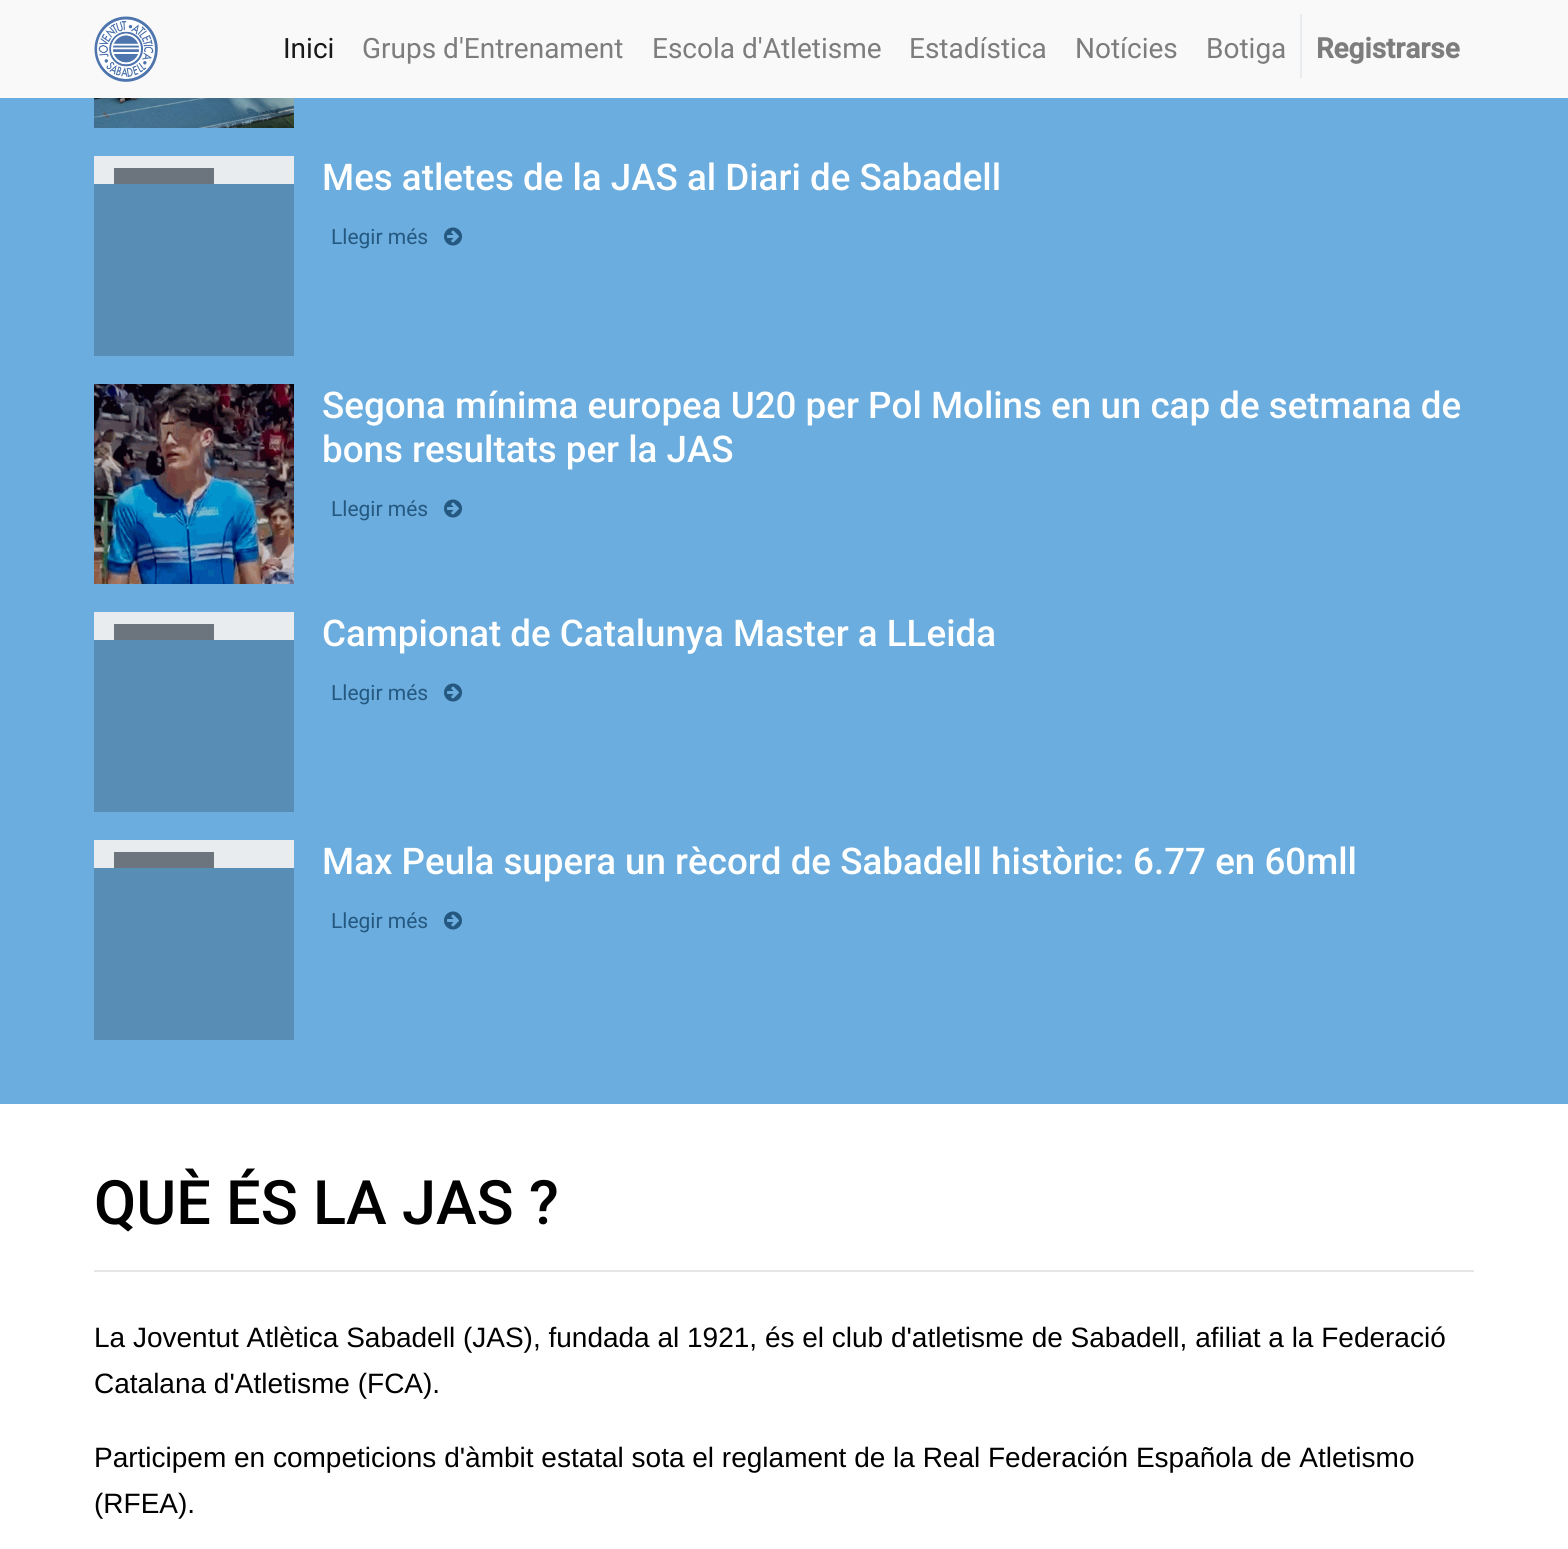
import math
import cairo

surface = cairo.ImageSurface(cairo.FORMAT_RGB24, 1568, 1549)
c = cairo.Context(surface)
options = cairo.FontOptions()
options.set_hint_metrics(cairo.HINT_METRICS_OFF)
options.set_hint_style(cairo.HINT_STYLE_NONE)
c.set_font_options(options)
c.set_miter_limit(4)
def C(code):
 c.set_source_rgb(*(v / 255 for v in bytes.fromhex(code[-6:])))
def F(family, size, italic, bold):
 c.select_font_face(family, cairo.FONT_SLANT_ITALIC if italic else cairo.FONT_SLANT_NORMAL, cairo.FONT_WEIGHT_BOLD if bold else cairo.FONT_WEIGHT_NORMAL)
 c.set_font_size(size)
def T(x, y, s):
 c.move_to(x, y)
 c.show_text(s)
def R(x, y, w, h):
 c.rectangle(x, y, w, h)
 c.fill()
def I(path, x, y, w, h):
 c.save()
 c.set_source_surface(cairo.ImageSurface.create_from_png(path), x, y)
 c.rectangle(x, y, w, h)
 c.fill()
 c.restore()
C('ffffff')
c.paint()
C('f9f9f9')
R(0,0,1568,98)
I('1.png',94,16,64,66)
F('Roboto',28,0,0)
C('191919')
T(283,58,'Inici')
C('7d7d7d')
T(362,58,'Grups d\'Entrenament')
T(652,58,'Escola d\'Atletisme')
T(909,58,'Estadística')
T(1075,58,'Notícies')
T(1206,58,'Botiga')
C('e9ecef')
R(1300,14,2,64)
F('Roboto',28,0,1)
C('7d7d7d')
T(1316,58,'Registrarse')
C('6badde')
R(0,98,1568,1006)
I('2.png',94,98,200,30)
C('e9ecef')
R(94,156,200,28)
C('6c757d')
R(114,168,100,16)
C('588eb6')
R(94,184,200,172)
F('Roboto Medium',36.75,0,0)
C('ffffff')
T(322,190,'Mes atletes de la JAS al Diari de Sabadell')
F('Roboto',21,0,0)
C('245880')
T(331,244,'Llegir més')
I('3.png',444,227,18,19)
I('4.png',94,384,200,200)
F('Roboto Medium',36.75,0,0)
C('ffffff')
T(322,418,'Segona mínima europea U20 per Pol Molins en un cap de setmana de')
T(322,462,'bons resultats per la JAS')
F('Roboto',21,0,0)
C('245880')
T(331,516,'Llegir més')
I('3.png',444,499,18,19)
C('e9ecef')
R(94,612,200,28)
C('6c757d')
R(114,624,100,16)
C('588eb6')
R(94,640,200,172)
F('Roboto Medium',36.75,0,0)
C('ffffff')
T(322,646,'Campionat de Catalunya Master a LLeida')
F('Roboto',21,0,0)
C('245880')
T(331,700,'Llegir més')
I('3.png',444,683,18,19)
C('e9ecef')
R(94,840,200,28)
C('6c757d')
R(114,852,100,16)
C('588eb6')
R(94,868,200,172)
F('Roboto Medium',36.75,0,0)
C('ffffff')
T(322,874,'Max Peula supera un rècord de Sabadell històric: 6.77 en 60mll')
F('Roboto',21,0,0)
C('245880')
T(331,928,'Llegir més')
I('3.png',444,911,18,19)
F('Roboto Medium',61.25,0,0)
C('000000')
T(94,1224,'QUÈ ÉS LA JAS ?')
C('e6e6e6')
R(94,1270,1380,2)
F('Liberation Sans',28,0,0)
C('000000')
T(94,1347,'La Joventut Atlètica Sabadell (JAS), fundada al 1921, és el club d\'atletisme de Sabadell, afiliat a la Federació')
T(94,1393,'Catalana d\'Atletisme (FCA).')
T(94,1467,'Participem en competicions d\'àmbit estatal sota el reglament de la Real Federación Española de Atletismo')
T(94,1513,'(RFEA).')
surface.write_to_png('o.png')
